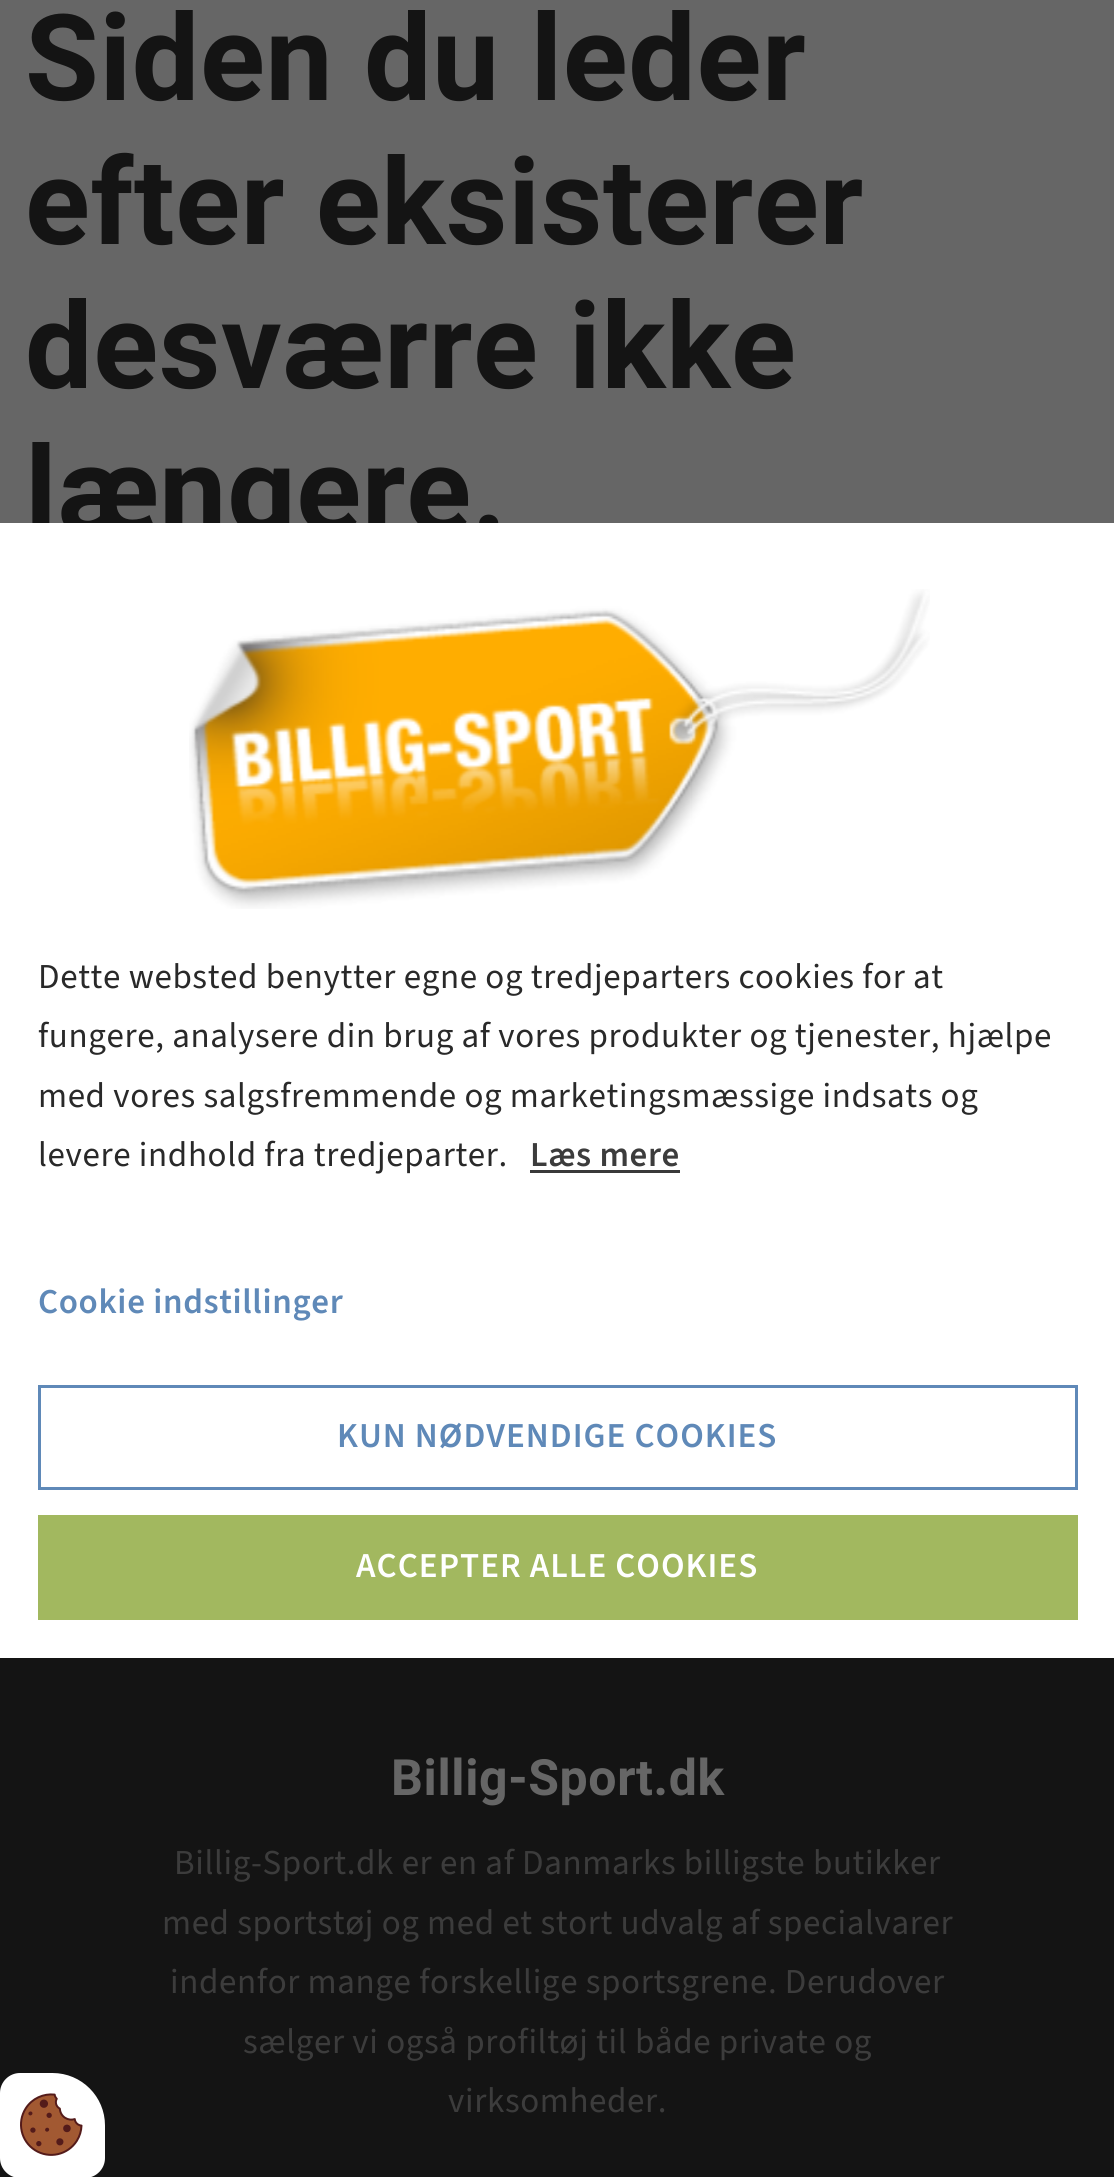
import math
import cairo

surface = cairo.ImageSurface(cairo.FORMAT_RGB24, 1114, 2177)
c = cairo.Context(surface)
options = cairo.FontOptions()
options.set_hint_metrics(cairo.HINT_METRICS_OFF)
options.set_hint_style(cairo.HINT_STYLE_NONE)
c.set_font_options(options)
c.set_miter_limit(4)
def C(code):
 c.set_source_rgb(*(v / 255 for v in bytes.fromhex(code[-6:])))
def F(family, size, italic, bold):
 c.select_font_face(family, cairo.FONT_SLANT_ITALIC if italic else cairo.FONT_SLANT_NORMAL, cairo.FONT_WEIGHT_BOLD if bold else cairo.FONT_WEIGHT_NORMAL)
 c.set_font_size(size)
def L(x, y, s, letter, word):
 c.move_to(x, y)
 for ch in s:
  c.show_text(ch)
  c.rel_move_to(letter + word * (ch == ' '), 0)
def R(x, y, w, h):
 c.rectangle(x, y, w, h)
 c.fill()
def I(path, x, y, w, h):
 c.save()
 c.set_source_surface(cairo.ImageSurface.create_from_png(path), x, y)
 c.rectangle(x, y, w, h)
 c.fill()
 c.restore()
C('666666')
c.paint()
F('Roboto',120,0,1)
C('141414')
L(25,100,'Siden du leder',.62,0)
L(25,244,'efter eksisterer',.62,0)
L(25,388,'desværre ikke',.62,0)
L(25,532,'længere.',.62,0)
R(0,1658,1114,519)
F('Roboto',50,0,1)
C('666666')
L(391,1795,'Billig-Sport.dk',.62,0)
F('Source Sans 3 ExtraLight',35,0,0)
C('3c3c3c')
L(174,1874,'Billig-Sport.dk er en af Danmarks billigste butikker',.62,0)
L(162,1934,'med sportstøj og med et stort udvalg af specialvarer',.62,0)
L(170,1993,'indenfor mange forskellige sportsgrene. Derudover',.62,0)
L(243,2053,'sælger vi også profiltøj til både private og',.62,0)
L(448,2112,'virksomheder.',.62,0)
C('ffffff')
R(0,523,1114,1135)
I('1.png',189,589,741,320)
C('292929')
L(38,988,'Dette websted benytter egne og tredjeparters cookies for at',.62,0)
L(38,1047,'fungere, analysere din brug af vores produkter og tjenester, hjælpe',.62,0)
L(38,1107,'med vores salgsfremmende og marketingsmæssige indsats og',.62,0)
L(38,1166,'levere indhold fra tredjeparter.',.62,0)
F('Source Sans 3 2 ExtraLight',35,0,0)
C('3c3c3c')
L(530,1166,'Læs mere',.62,0)
C('393939')
R(530,1170,150,3)
C('5f89b8')
L(38,1313,'Cookie indstillinger',.62,0)
c.rectangle(39.5,1386.5,1037,102)
c.set_line_width(3)
c.stroke()
L(337,1447,'KUN NØDVENDIGE COOKIES',1,0)
C('a2b85f')
R(38,1515,1040,105)
C('ffffff')
L(356,1577,'ACCEPTER ALLE COOKIES',1,0)
c.new_path()
c.move_to(20,2073)
c.line_to(52.5,2073)
c.curve_to(81.5,2073,105,2096.5,105,2125.5)
c.line_to(105,2158)
c.curve_to(105,2169,96,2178,85,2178)
c.line_to(20,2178)
c.curve_to(9,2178,0,2169,0,2158)
c.line_to(0,2093)
c.curve_to(0,2082,9,2073,20,2073)
c.close_path()
c.fill()
I('2.png',20,2093,63,63)
surface.write_to_png('o.png')
